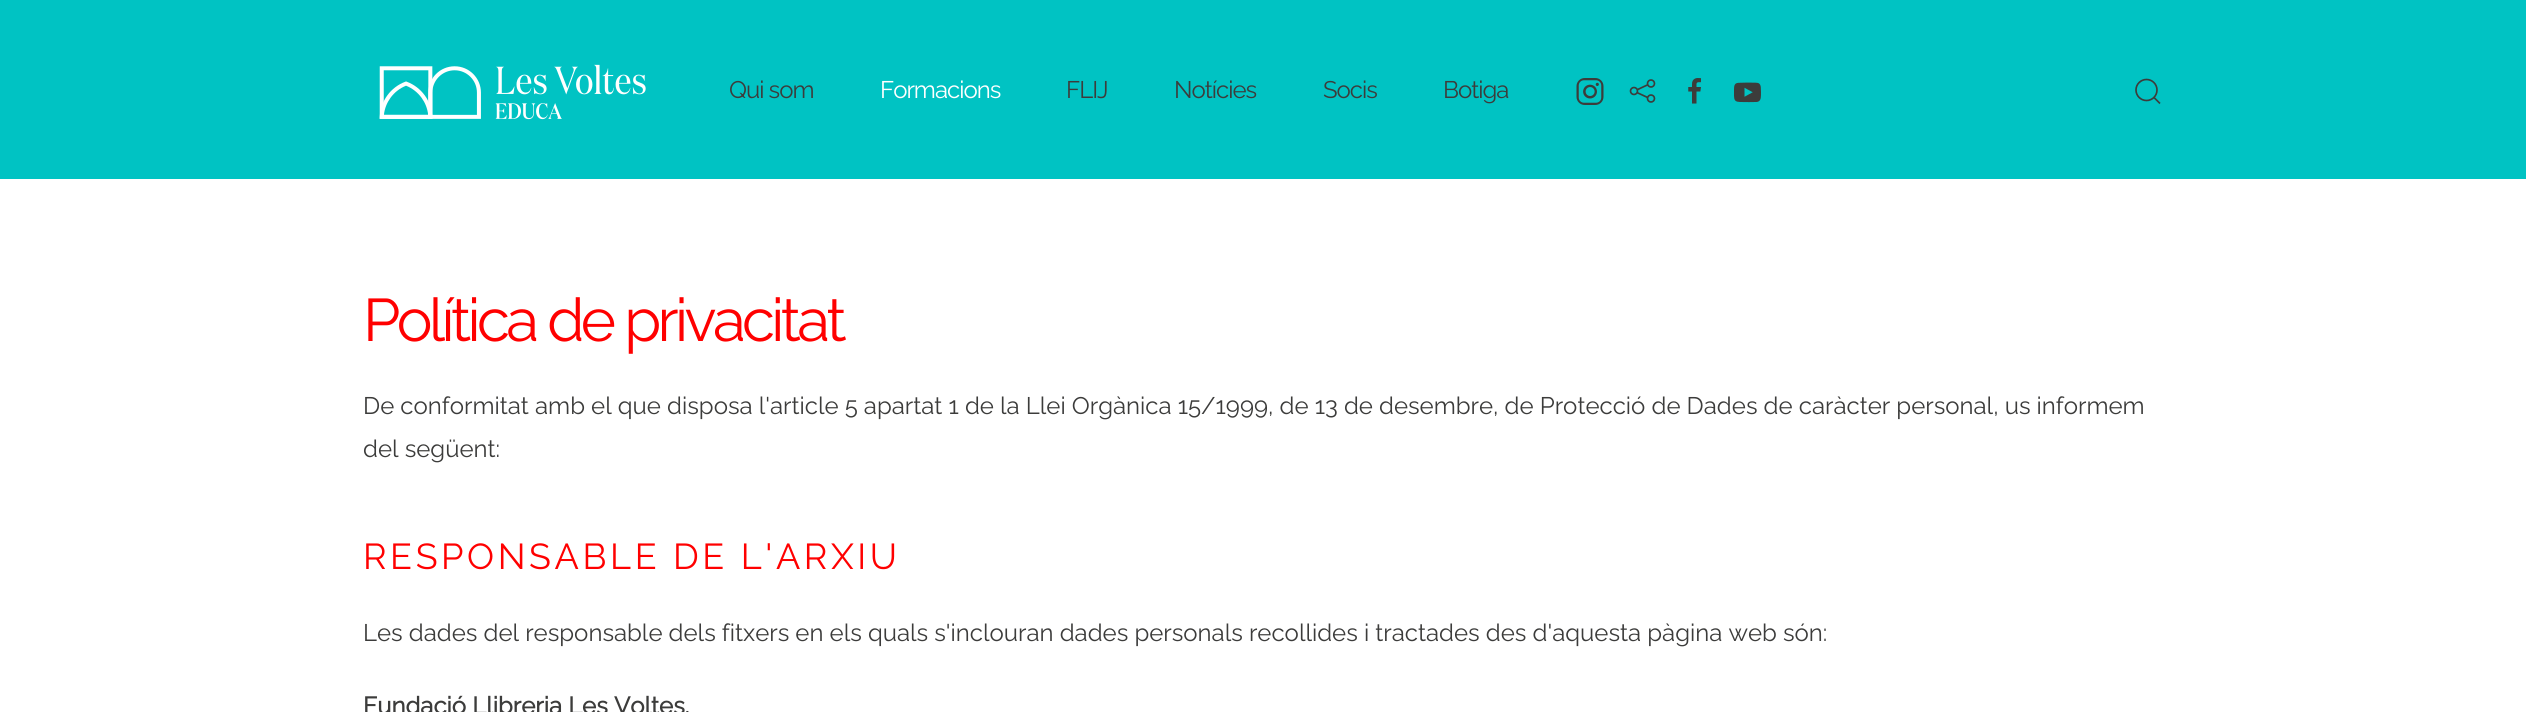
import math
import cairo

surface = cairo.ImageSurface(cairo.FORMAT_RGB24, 2526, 712)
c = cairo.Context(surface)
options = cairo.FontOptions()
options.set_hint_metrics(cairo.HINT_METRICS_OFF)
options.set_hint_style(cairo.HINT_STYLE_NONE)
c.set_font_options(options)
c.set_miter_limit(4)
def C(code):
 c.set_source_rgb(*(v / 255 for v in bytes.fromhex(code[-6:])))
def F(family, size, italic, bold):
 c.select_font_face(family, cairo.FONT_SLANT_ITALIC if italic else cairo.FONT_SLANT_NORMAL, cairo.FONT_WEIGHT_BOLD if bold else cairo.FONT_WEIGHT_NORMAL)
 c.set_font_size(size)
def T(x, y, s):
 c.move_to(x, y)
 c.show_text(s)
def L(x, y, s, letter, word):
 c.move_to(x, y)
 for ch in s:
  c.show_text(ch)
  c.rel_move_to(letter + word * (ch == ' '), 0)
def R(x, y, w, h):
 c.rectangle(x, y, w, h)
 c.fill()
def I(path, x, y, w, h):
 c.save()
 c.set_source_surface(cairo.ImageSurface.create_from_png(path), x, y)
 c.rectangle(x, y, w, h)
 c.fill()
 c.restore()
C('ffffff')
c.paint()
C('00c3c3')
R(0,0,2526,179)
I('1.png',379,64,267,56)
F('Raleway Thin',24,0,0)
C('3c3c3b')
L(729,98,'Qui som',-1,0)
C('ffffff')
L(880,98,'Formacions',-1,0)
C('3c3c3b')
L(1066,98,'FLIJ',-1,0)
L(1174,98,'Notícies',-1,0)
L(1323,98,'Socis',-1,0)
L(1443,98,'Botiga',-1,0)
I('2.png',1576,78,28,27)
I('3.png',1629,79,27,24)
I('4.png',1688,78,13,26)
I('5.png',1734,82,27,21)
c.arc(2146.5,90,10.5,0,2 * math.pi)
c.set_line_width(1.7)
c.stroke()
c.new_path()
c.move_to(2154,97.5)
c.line_to(2160,103.5)
c.close_path()
c.stroke()
F('Raleway Thin',60,0,0)
C('ff0000')
L(363,341,'Política de privacitat',-3.6,0)
F('Raleway Thin',24,0,0)
C('3c3c3b')
T(363,414,'De conformitat amb el que disposa l\'article 5 apartat 1 de la Llei Orgànica 15/1999, de 13 de desembre, de Protecció de Dades de caràcter personal, us informem')
T(363,457,'del següent:')
F('Raleway Thin',36,0,0)
C('ff0000')
L(363,569,'RESPONSABLE DE L\'ARXIU',3.6,0)
F('Raleway Thin',24,0,0)
C('3c3c3b')
T(363,641,'Les dades del responsable dels fitxers en els quals s\'inclouran dades personals recollides i tractades des d\'aquesta pàgina web són:')
F('Raleway',24,0,1)
T(363,714,'Fundació Llibreria Les Voltes.')
surface.write_to_png('o.png')
